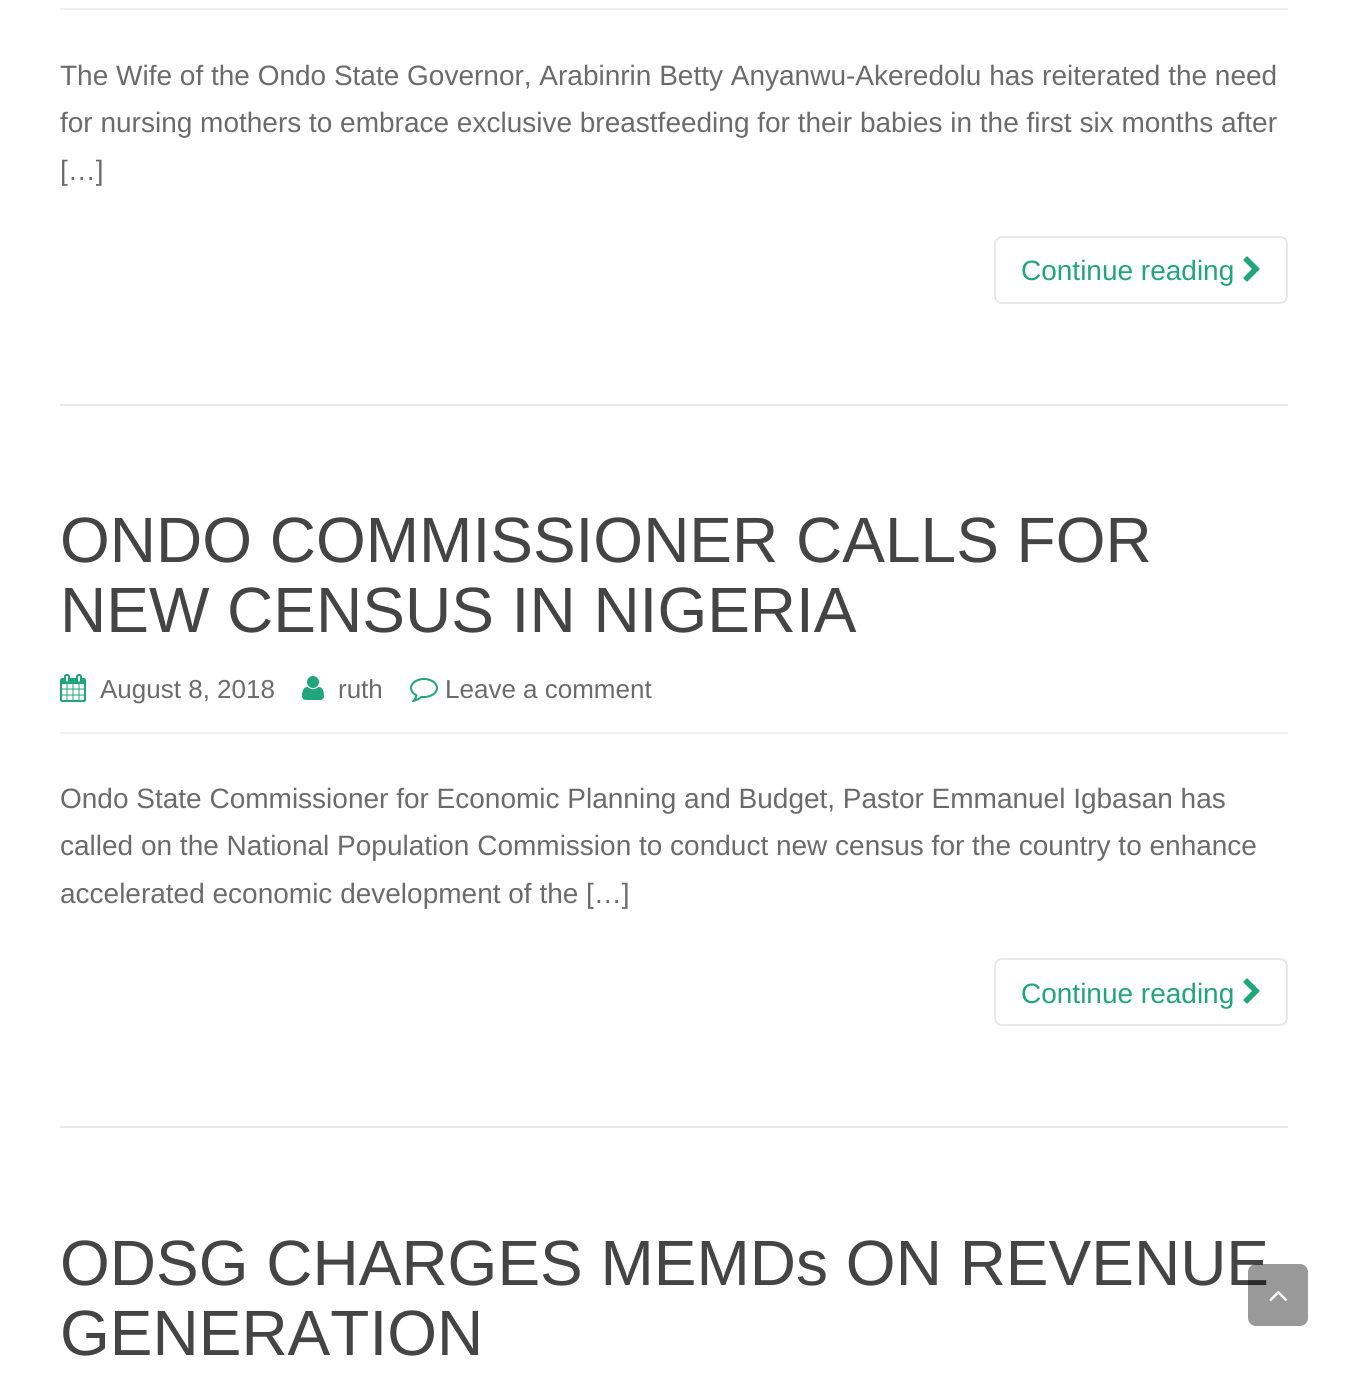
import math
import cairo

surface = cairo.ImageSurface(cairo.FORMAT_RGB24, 1347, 1381)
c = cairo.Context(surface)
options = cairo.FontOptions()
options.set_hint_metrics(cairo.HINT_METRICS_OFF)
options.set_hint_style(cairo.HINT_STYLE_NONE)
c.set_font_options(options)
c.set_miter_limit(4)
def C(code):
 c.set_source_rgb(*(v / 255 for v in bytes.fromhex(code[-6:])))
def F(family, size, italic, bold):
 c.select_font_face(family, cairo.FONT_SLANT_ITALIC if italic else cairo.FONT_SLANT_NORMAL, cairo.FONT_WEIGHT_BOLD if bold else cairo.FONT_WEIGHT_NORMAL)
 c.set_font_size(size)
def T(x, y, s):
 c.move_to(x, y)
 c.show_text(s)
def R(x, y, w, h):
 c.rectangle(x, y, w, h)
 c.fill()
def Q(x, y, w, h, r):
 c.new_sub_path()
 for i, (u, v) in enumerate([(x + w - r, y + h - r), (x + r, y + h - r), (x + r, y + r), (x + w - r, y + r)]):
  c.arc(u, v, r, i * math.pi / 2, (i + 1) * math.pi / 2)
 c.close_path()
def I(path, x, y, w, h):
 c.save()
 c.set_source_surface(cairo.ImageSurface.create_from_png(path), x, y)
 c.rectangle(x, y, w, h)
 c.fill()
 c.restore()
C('ffffff')
c.paint()
C('eeeeee')
R(60,8,1228,2)
F('Liberation Sans',28,0,0)
C('6b6b6b')
T(60,85,'The Wife of the Ondo State Governor, Arabinrin Betty Anyanwu-Akeredolu has reiterated the need')
T(60,132,'for nursing mothers to embrace exclusive breastfeeding for their babies in the first six months after')
T(60,180,'[…]')
Q(995,237,292,66,7)
C('e8e8e8')
c.stroke()
C('1fa67a')
T(1021,280,'Continue reading')
I('1.png',1243,256,17,26)
C('e8e8e8')
R(60,404,1228,2)
C('eeeeee')
R(60,732,1228,2)
F('Liberation Sans',64,0,0)
C('444444')
T(60,562,'ONDO COMMISSIONER CALLS FOR')
T(60,632,'NEW CENSUS IN NIGERIA')
I('2.png',60,674,26,28)
F('Liberation Sans',26,0,0)
C('6b6b6b')
T(100,698,'August 8, 2018')
I('3.png',302,676,22,24)
T(338,698,'ruth')
I('4.png',410,678,28,24)
T(445,698,'Leave a comment')
F('Liberation Sans',28,0,0)
T(60,808,'Ondo State Commissioner for Economic Planning and Budget, Pastor Emmanuel Igbasan has')
T(60,855,'called on the National Population Commission to conduct new census for the country to enhance')
T(60,903,'accelerated economic development of the […]')
Q(995,959,292,66,7)
C('e8e8e8')
c.stroke()
C('1fa67a')
T(1021,1003,'Continue reading')
I('1.png',1243,978,17,26)
C('e8e8e8')
R(60,1126,1228,2)
F('Liberation Sans',64,0,0)
C('444444')
T(60,1285,'ODSG CHARGES MEMDs ON REVENUE')
T(60,1355,'GENERATION')
c.set_source_rgba(0,0,0,0.4)
Q(1248,1264,60,62,8)
c.fill()
I('5.png',1269,1290,19,12)
surface.write_to_png('o.png')
